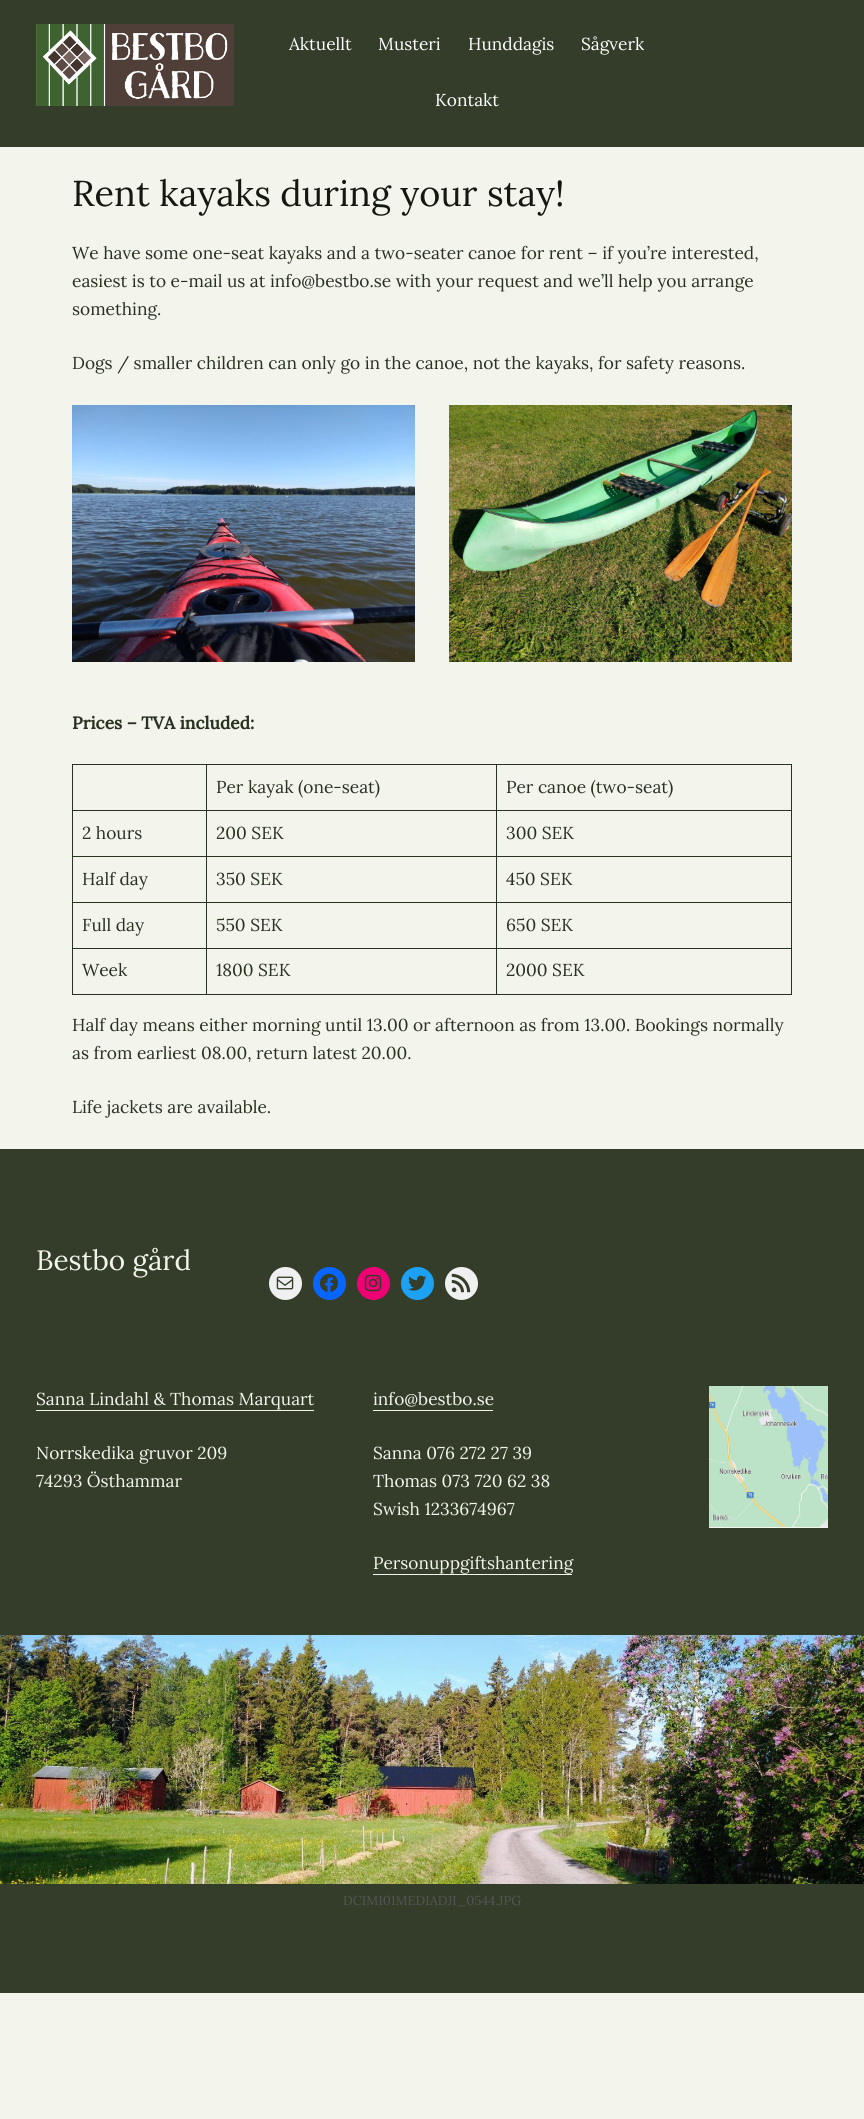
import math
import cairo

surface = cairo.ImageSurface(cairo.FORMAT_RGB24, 864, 2119)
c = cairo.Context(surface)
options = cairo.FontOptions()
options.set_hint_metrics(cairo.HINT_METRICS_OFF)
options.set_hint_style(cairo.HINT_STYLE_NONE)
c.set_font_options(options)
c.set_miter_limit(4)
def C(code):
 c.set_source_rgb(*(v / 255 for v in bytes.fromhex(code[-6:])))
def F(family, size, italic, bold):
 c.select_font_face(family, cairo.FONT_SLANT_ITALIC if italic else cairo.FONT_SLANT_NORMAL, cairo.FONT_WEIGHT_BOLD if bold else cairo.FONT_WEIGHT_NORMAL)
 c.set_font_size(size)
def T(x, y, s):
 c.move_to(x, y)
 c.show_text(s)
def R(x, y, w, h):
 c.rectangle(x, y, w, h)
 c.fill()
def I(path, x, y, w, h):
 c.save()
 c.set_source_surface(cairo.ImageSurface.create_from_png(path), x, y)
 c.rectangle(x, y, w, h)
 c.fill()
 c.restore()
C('f3f4ec')
c.paint()
C('333d29')
R(0,0,864,147)
I('1.png',36,24,198,82)
F('Lora',17.3,0,0)
C('ffffff')
T(289,50,'Aktuellt')
T(378,50,'Musteri')
T(468,50,'Hunddagis')
T(581,50,'Sågverk')
T(435,106,'Kontakt')
F('Lora',36,0,0)
C('141810')
T(72,206,'Rent kayaks during your stay!')
F('Lora',17.3,0,0)
C('293121')
T(72,259,'We have some one-seat kayaks and a two-seater canoe for rent – if you’re interested,')
T(72,287,'easiest is to e-mail us at info@bestbo.se with your request and we’ll help you arrange')
T(72,315,'something.')
T(72,369,'Dogs / smaller children can only go in the canoe, not the kayaks, for safety reasons.')
I('2.png',72,405,343,257)
I('3.png',449,405,343,257)
F('Lora',17.3,0,1)
T(72,729,'Prices – TVA included:')
R(496,764,296,1)
R(496,810,296,1)
R(496,856,296,1)
R(496,902,296,1)
R(496,948,296,1)
R(791,948,1,47)
R(496,994,296,1)
R(496,948,1,47)
R(206,948,291,1)
R(496,902,1,47)
R(206,902,291,1)
R(496,856,1,47)
R(206,856,291,1)
R(496,810,1,47)
R(206,810,291,1)
R(496,764,1,47)
R(206,764,291,1)
R(206,994,291,1)
R(206,948,1,47)
R(72,948,135,1)
R(206,902,1,47)
R(72,902,135,1)
R(206,856,1,47)
R(72,856,135,1)
R(206,810,1,47)
R(72,810,135,1)
R(206,764,1,47)
R(72,764,135,1)
R(72,994,135,1)
R(72,948,1,47)
R(72,902,1,47)
R(72,856,1,47)
R(72,810,1,47)
R(72,764,1,47)
F('Lora',17.3,0,0)
T(216,793,'Per kayak (one-seat)')
R(791,902,1,47)
R(791,856,1,47)
R(791,810,1,47)
R(791,764,1,47)
T(506,793,'Per canoe (two-seat)')
T(82,839,'2 hours')
T(216,839,'200 SEK')
T(506,839,'300 SEK')
T(82,885,'Half day')
T(216,885,'350 SEK')
T(506,885,'450 SEK')
T(82,931,'Full day')
T(216,931,'550 SEK')
T(506,931,'650 SEK')
T(82,976,'Week')
T(216,976,'1800 SEK')
T(506,976,'2000 SEK')
T(72,1031,'Half day means either morning until 13.00 or afternoon as from 13.00. Bookings normally')
T(72,1059,'as from earliest 08.00, return latest 20.00.')
T(72,1113,'Life jackets are available.')
C('333d29')
R(0,1149,864,844)
F('Lora',28,0,0)
C('f3f4ec')
T(36,1270,'Bestbo gård')
C('f0f0f0')
c.new_path()
c.arc(285.5,1283.5,16.5,0,2 * math.pi)
c.fill()
I('4.png',276,1276,18,14)
C('0866ff')
c.arc(329.5,1283.5,16.5,0,2 * math.pi)
c.fill()
I('5.png',319,1273,20,19)
C('f00075')
c.arc(373.5,1283.5,16.5,0,2 * math.pi)
c.fill()
I('6.png',364,1274,18,18)
C('1da1f2')
c.arc(417.5,1283.5,16.5,0,2 * math.pi)
c.fill()
I('7.png',408,1275,19,16)
C('f0f0f0')
c.arc(461.5,1283.5,16.5,0,2 * math.pi)
c.fill()
I('8.png',451,1273,20,20)
F('Lora',17.3,0,0)
C('f3f4ec')
T(36,1405,'Sanna Lindahl & Thomas Marquart')
R(36,1410,278,1)
T(36,1459,'Norrskedika gruvor 209')
T(36,1487,'74293 Östhammar')
T(373,1405,'info@bestbo.se')
R(373,1410,120,1)
T(373,1459,'Sanna 076 272 27 39')
T(373,1487,'Thomas 073 720 62 38')
T(373,1515,'Swish 1233674967')
T(373,1569,'Personuppgiftshantering')
R(373,1574,199,1)
R(709,1527,119,1)
I('9.png',709,1386,119,141)
I('10.png',0,1635,864,249)
F('Lora',13,0,0)
C('555555')
T(343,1905,'DCIM101MEDIADJI_0544.JPG')
surface.write_to_png('o.png')
